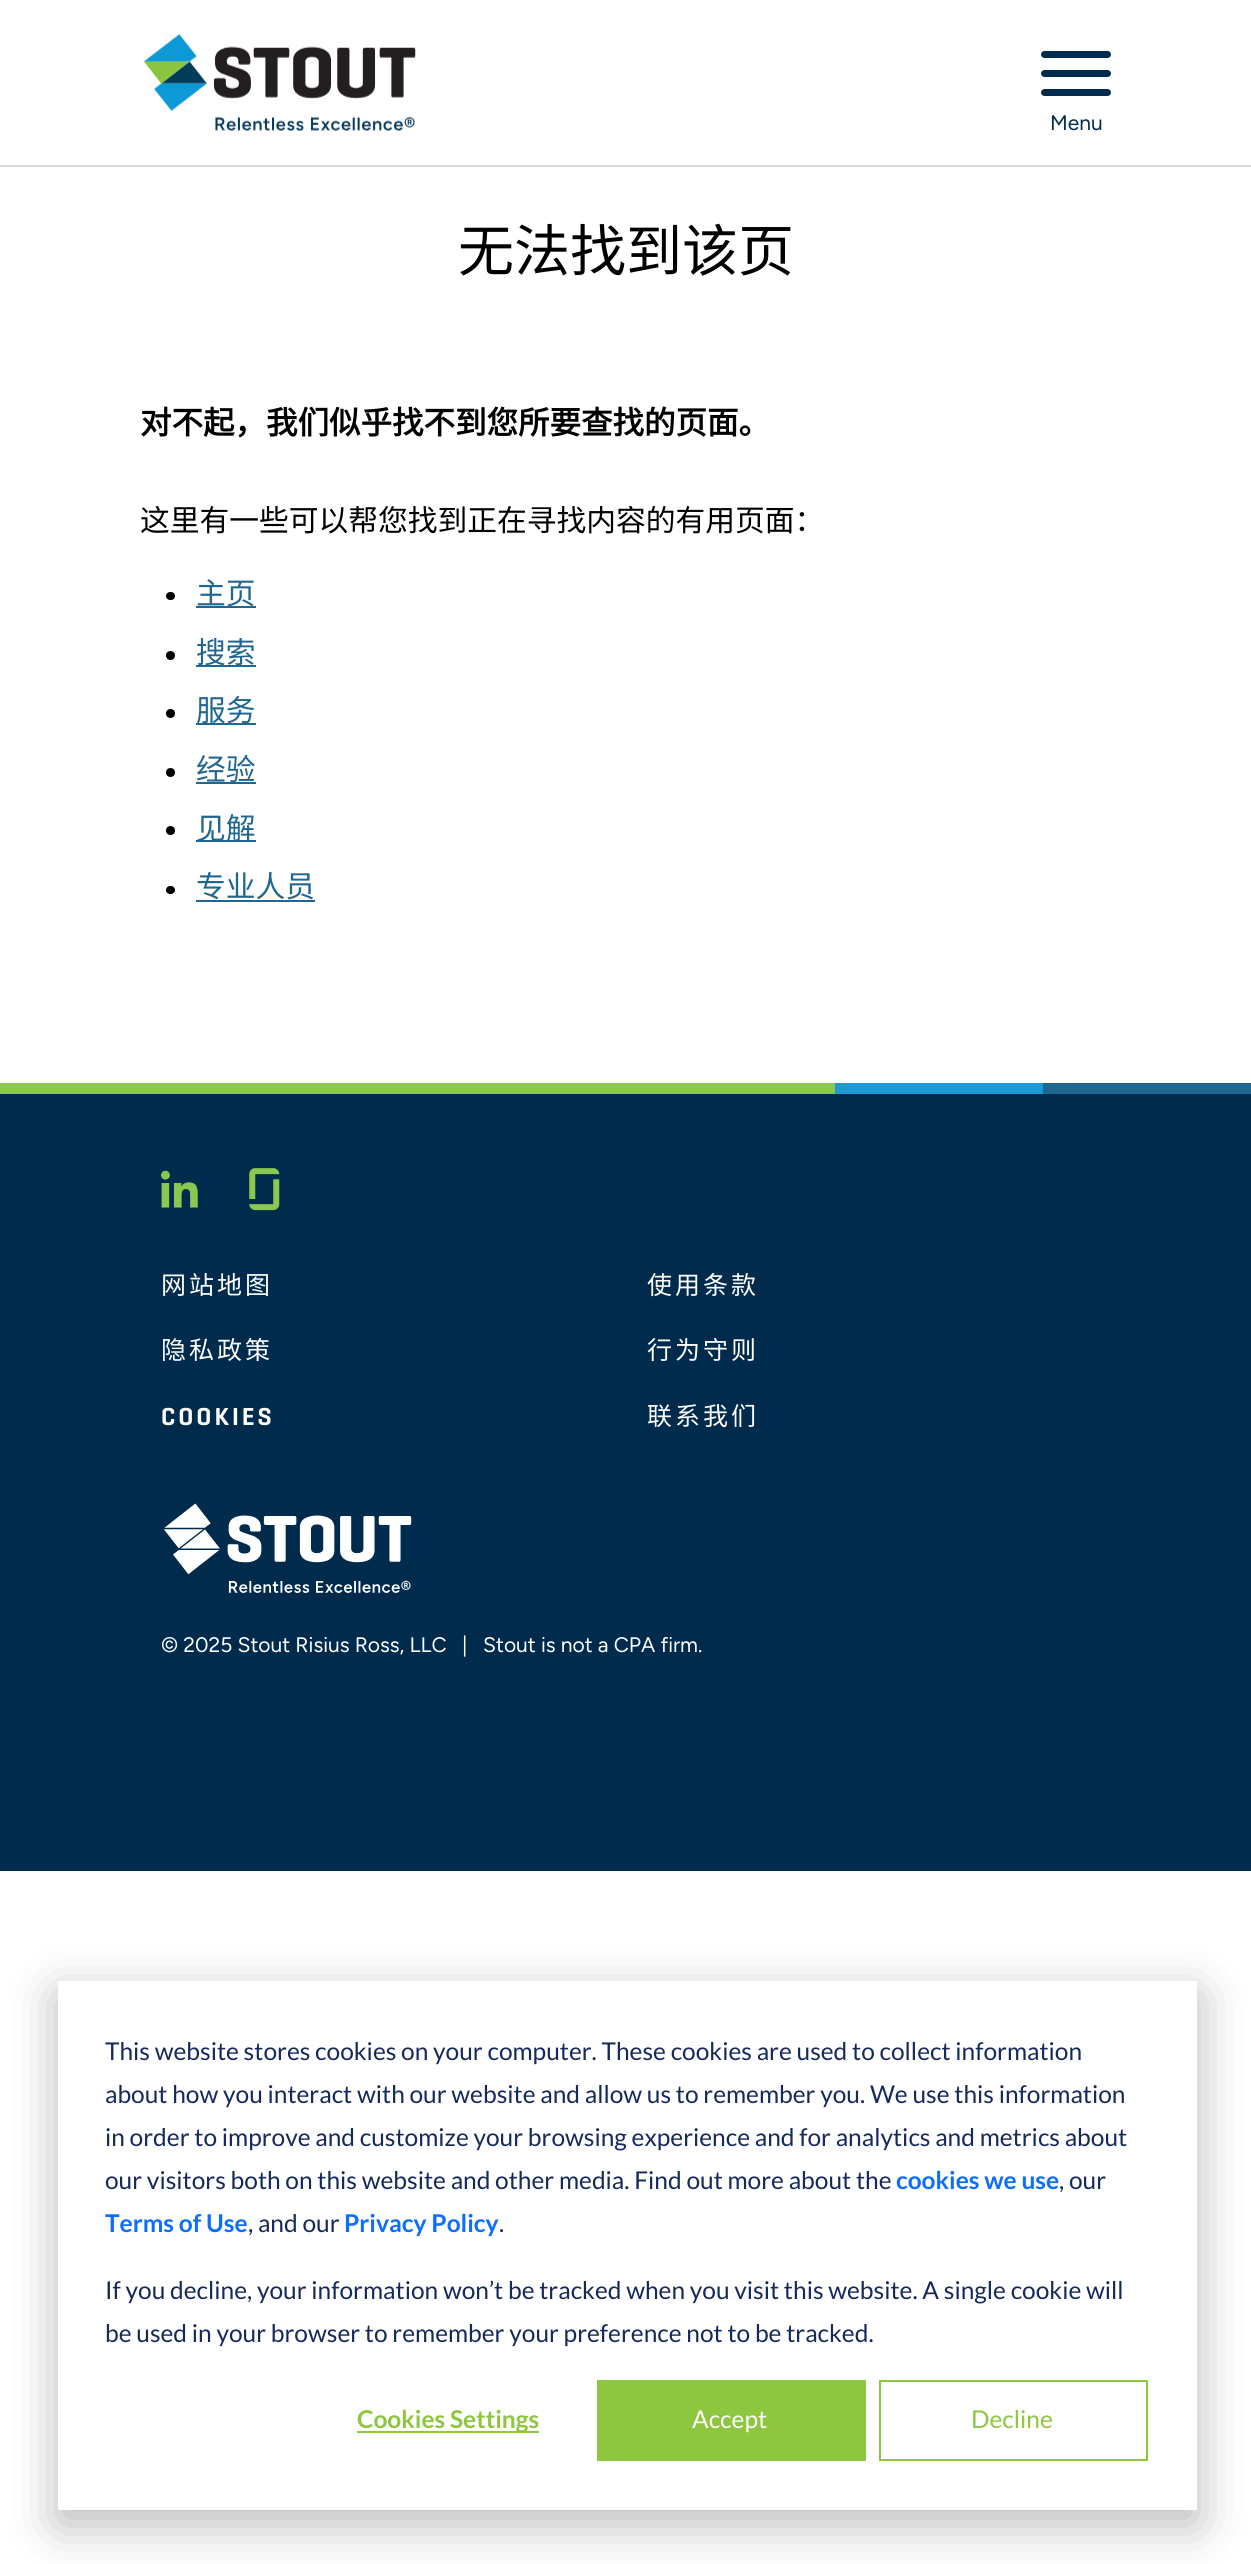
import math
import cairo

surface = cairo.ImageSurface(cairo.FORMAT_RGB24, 1251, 2564)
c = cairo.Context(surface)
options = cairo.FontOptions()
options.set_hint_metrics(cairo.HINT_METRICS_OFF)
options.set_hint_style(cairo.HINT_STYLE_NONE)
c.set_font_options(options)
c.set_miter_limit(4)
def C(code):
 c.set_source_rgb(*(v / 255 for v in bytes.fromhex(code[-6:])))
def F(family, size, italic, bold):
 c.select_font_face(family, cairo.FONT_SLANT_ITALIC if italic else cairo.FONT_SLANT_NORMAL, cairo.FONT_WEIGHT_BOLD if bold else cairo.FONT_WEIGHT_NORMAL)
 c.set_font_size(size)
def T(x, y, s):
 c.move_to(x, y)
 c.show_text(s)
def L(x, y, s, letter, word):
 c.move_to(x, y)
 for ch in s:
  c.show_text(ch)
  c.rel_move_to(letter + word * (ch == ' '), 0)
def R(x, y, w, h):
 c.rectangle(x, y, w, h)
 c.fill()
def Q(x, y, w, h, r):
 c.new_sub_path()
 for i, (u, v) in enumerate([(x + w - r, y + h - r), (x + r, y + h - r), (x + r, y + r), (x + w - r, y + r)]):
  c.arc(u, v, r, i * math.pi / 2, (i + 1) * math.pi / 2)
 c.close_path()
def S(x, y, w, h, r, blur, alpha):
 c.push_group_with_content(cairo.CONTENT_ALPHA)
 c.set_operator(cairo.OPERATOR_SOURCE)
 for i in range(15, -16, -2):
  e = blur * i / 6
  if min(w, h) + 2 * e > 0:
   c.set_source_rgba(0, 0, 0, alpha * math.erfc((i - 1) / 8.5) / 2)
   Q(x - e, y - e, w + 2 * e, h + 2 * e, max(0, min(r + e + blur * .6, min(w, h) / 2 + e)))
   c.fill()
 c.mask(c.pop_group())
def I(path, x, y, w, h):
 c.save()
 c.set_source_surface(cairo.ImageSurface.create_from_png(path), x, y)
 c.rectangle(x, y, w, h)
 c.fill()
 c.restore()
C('ffffff')
c.paint()
C('d9d9d9')
R(0,165,1251,2)
I('1.png',144,33,272,98)
C('002b4c')
Q(1041,51,70,7,3.5)
c.fill()
Q(1041,70,70,7,3.5)
c.fill()
Q(1041,89,70,7,3.5)
c.fill()
F('Figtree',21,0,0)
T(1050,130,'Menu')
F('Noto Sans CJK SC',56,0,0)
C('000000')
T(458,271,'无法找到该页')
F('Noto Sans CJK SC',31.5,0,1)
T(140,434,'对不起，我们似乎找不到您所要查找的页面。')
F('Noto Sans CJK SC',29.75,0,0)
T(140,531,'这里有一些可以帮您找到正在寻找内容的有用页面：')
Q(166,592,9,8,4)
c.fill()
C('1f6691')
R(196,606,60,2)
T(196,604,'主页')
C('000000')
c.new_path()
c.arc(170.5,655.5,4.5,0,2 * math.pi)
c.fill()
C('1f6691')
R(196,665,60,2)
T(196,663,'搜索')
C('000000')
c.new_path()
c.arc(170.5,713.5,4.5,0,2 * math.pi)
c.fill()
C('1f6691')
R(196,723,60,2)
T(196,721,'服务')
C('000000')
c.new_path()
c.arc(170.5,772.5,4.5,0,2 * math.pi)
c.fill()
C('1f6691')
R(196,782,60,2)
T(196,780,'经验')
C('000000')
c.new_path()
c.arc(170.5,830.5,4.5,0,2 * math.pi)
c.fill()
C('1f6691')
R(196,840,60,2)
T(196,839,'见解')
C('000000')
Q(166,886,9,8,4)
c.fill()
C('1f6691')
T(196,897,'专业人员')
R(196,900,119,2)
C('002b4c')
R(0,1094,1251,777)
C('8ac851')
R(0,1083,835,11)
C('1c9ad6')
R(835,1083,208,11)
C('1f6691')
R(1043,1083,208,11)
I('2.png',161,1170,37,38)
I('3.png',249,1168,31,43)
F('Noto Sans CJK SC',25,0,0)
C('ffffff')
L(161,1294,'网站地图',3,0)
L(647,1294,'使用条款',3,0)
L(161,1359,'隐私政策',3,0)
L(647,1359,'行为守则',3,0)
F('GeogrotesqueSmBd',25,0,0)
L(161,1425,'COOKIES',3,0)
F('Noto Sans CJK SC',25,0,0)
L(647,1425,'联系我们',3,0)
I('4.png',164,1503,248,90)
F('Figtree',21,0,0)
T(161,1652,'© 2025 Stout Risius Ross, LLC   |   Stout is not a CPA firm.')
C('000000')
S(58,1995,1139,529,0,24.5,.28)
C('ffffff')
R(58,1981,1139,529)
F('Lato',24.5,0,0)
C('15295a')
T(105,2060,'This website stores cookies on your computer. These cookies are used to collect information')
T(105,2103,'about how you interact with our website and allow us to remember you. We use this information')
T(105,2146,'in order to improve and customize your browsing experience and for analytics and metrics about')
T(105,2189,'our visitors both on this website and other media. Find out more about the')
F('Lato',24.5,0,1)
C('0d6efd')
T(896,2189,'cookies we use')
F('Lato',24.5,0,0)
C('15295a')
T(1059,2189,', our')
F('Lato',24.5,0,1)
C('0d6efd')
T(105,2232,'Terms of Use')
F('Lato',24.5,0,0)
C('15295a')
T(248,2232,', and our')
F('Lato',24.5,0,1)
C('0d6efd')
T(344,2232,'Privacy Policy')
F('Lato',24.5,0,0)
C('15295a')
T(499,2232,'.')
T(105,2299,'If you decline, your information won’t be tracked when you visit this website. A single cookie will')
T(105,2342,'be used in your browser to remember your preference not to be tracked.')
C('8dc63f')
R(357,2431,182,2)
F('Lato',24.5,0,1)
T(357,2428,'Cookies Settings')
R(597,2380,269,81)
F('Lato',24.5,0,0)
C('ffffff')
T(692,2428,'Accept')
c.rectangle(880,2381,267,79)
C('8dc63f')
c.stroke()
T(971,2428,'Decline')
surface.write_to_png('o.png')
